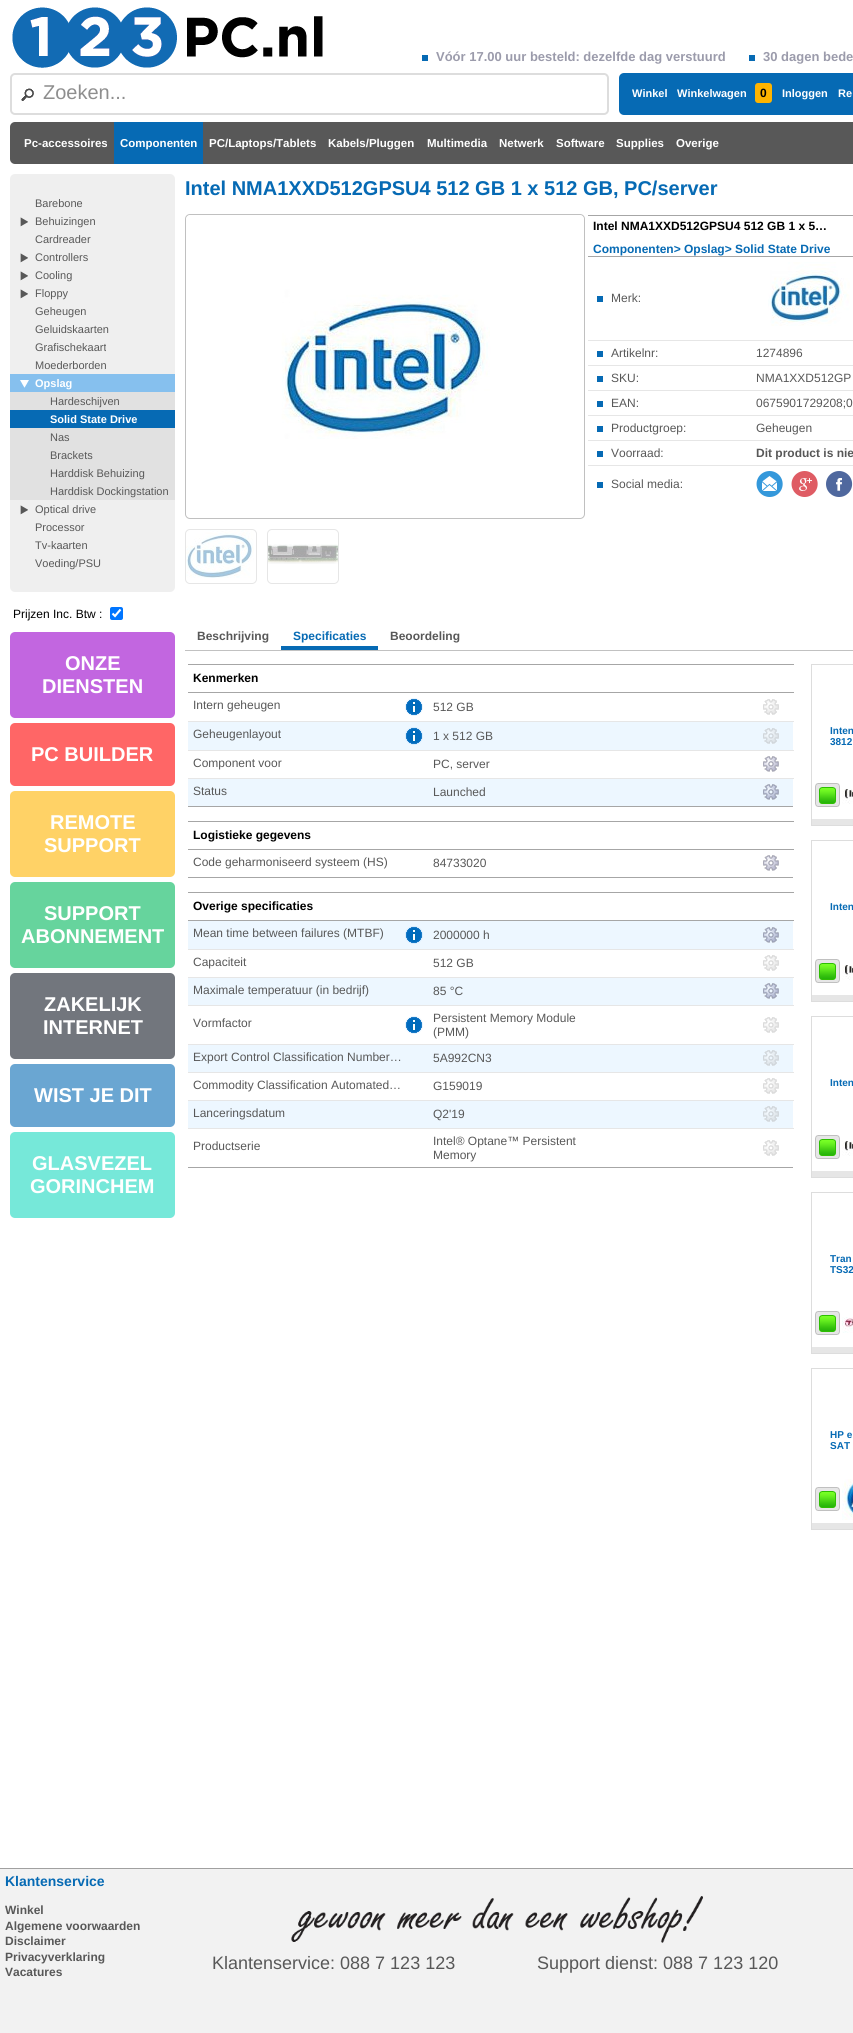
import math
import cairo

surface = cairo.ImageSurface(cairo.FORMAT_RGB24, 853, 2033)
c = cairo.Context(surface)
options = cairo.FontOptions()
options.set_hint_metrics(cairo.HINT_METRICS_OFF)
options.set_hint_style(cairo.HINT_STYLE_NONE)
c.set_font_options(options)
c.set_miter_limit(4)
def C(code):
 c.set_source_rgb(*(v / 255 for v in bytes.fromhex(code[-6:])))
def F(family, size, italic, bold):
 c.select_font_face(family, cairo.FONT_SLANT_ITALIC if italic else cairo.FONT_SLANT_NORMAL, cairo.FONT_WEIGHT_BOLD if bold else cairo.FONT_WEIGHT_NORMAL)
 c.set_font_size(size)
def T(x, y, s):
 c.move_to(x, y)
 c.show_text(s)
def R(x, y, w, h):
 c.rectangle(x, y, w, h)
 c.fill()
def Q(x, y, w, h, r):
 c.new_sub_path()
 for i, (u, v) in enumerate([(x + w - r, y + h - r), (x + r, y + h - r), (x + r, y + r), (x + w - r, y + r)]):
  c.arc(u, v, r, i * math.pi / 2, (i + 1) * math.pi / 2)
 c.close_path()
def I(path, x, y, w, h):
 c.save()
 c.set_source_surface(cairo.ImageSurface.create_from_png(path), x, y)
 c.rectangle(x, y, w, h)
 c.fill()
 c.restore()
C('ffffff')
c.paint()
I('1.png',12,7,311,61)
C('066ab4')
R(422,55,6,6)
F('Liberation Sans',13,0,1)
C('9b9bab')
T(436,61,'Vóór 17.00 uur besteld: dezelfde dag verstuurd')
C('066ab4')
R(749,55,6,6)
C('9b9bab')
T(763,61,'30 dagen bede')
I('2.png',21,88,13,13)
Q(11,74,597,40,4)
C('dddddd')
c.stroke()
C('ffffff')
R(604,75,1,1)
F('Liberation Sans',20,0,0)
C('8e8e8e')
T(43,99,'Zoeken...')
C('066ab4')
Q(619,73,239,42,5)
c.fill()
F('Liberation Sans',11,0,1)
C('ffffff')
T(632,97,'Winkel')
T(677,97,'Winkelwagen')
C('ffb400')
Q(755,83,17,20,3)
c.fill()
F('Liberation Sans',12,0,1)
C('000000')
T(760,97,'0')
F('Liberation Sans',11,0,1)
C('ffffff')
T(782,97,'Inloggen')
T(838,97,'Re')
C('585858')
Q(10,122,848,42,5)
c.fill()
F('Liberation Sans',11.5,0,1)
C('ffffff')
T(24,147,'Pc-accessoires')
C('066ab4')
R(114,122,89,42)
C('ffffff')
T(120,147,'Componenten')
T(209,147,'PC/Laptops/Tablets')
T(328,147,'Kabels/Pluggen')
T(427,147,'Multimedia')
T(499,147,'Netwerk')
T(556,147,'Software')
T(616,147,'Supplies')
T(676,147,'Overige')
C('efefef')
Q(10,174,165,418,5)
c.fill()
F('Liberation Sans',11,0,0)
C('585858')
T(35,207,'Barebone')
I('3.png',20,217,8,10)
T(35,225,'Behuizingen')
T(35,243,'Cardreader')
I('3.png',20,253,8,10)
T(35,261,'Controllers')
I('3.png',20,271,8,10)
T(35,279,'Cooling')
I('3.png',20,289,8,10)
T(35,297,'Floppy')
T(35,315,'Geheugen')
T(35,333,'Geluidskaarten')
T(35,351,'Grafischekaart')
T(35,369,'Moederborden')
C('86c0ee')
R(10,374,165,18)
I('4.png',20,380,9,8)
F('Liberation Sans',11,0,1)
C('ffffff')
T(35,387,'Opslag')
C('e1e1e1')
R(10,392,165,18)
F('Liberation Sans',11,0,0)
C('585858')
T(50,405,'Hardeschijven')
C('066ab4')
R(10,410,165,18)
F('Liberation Sans',11,0,1)
C('ffffff')
T(50,423,'Solid State Drive')
C('e1e1e1')
R(10,428,165,72)
F('Liberation Sans',11,0,0)
C('585858')
T(50,441,'Nas')
T(50,459,'Brackets')
T(50,477,'Harddisk Behuizing')
T(50,495,'Harddisk Dockingstation')
I('3.png',20,505,8,10)
T(35,513,'Optical drive')
T(35,531,'Processor')
T(35,549,'Tv-kaarten')
T(35,567,'Voeding/PSU')
F('Liberation Sans',12,0,0)
C('000000')
T(13,618,'Prijzen Inc. Btw :')
C('0075ff')
Q(110,607,13,13,2)
c.fill()
c.new_path()
c.move_to(112.5,613.5)
c.line_to(115,616)
c.line_to(120.5,609.5)
C('ffffff')
c.set_line_width(2.1)
c.stroke()
C('c266e0')
Q(10,632,165,86,5)
c.fill()
F('Liberation Sans',20,0,1)
C('ffffff')
T(65,670,'ONZE')
T(42,693,'DIENSTEN')
C('ff6666')
Q(10,723,165,63,5)
c.fill()
C('ffffff')
T(31,761,'PC BUILDER')
C('ffd266')
Q(10,791,165,86,5)
c.fill()
C('ffffff')
T(50,829,'REMOTE')
T(44,852,'SUPPORT')
C('66d49d')
Q(10,882,165,86,5)
c.fill()
C('ffffff')
T(44,920,'SUPPORT')
T(21,943,'ABONNEMENT')
C('72767d')
Q(10,973,165,86,5)
c.fill()
C('ffffff')
T(44,1011,'ZAKELIJK')
T(43,1034,'INTERNET')
C('6aa6d2')
Q(10,1064,165,63,5)
c.fill()
C('ffffff')
T(34,1102,'WIST JE DIT')
C('76e8d9')
Q(10,1132,165,86,5)
c.fill()
C('ffffff')
T(32,1170,'GLASVEZEL')
T(30,1193,'GORINCHEM')
C('066ab4')
T(185,195,'Intel NMA1XXD512GPSU4 512 GB 1 x 512 GB, PC/server')
Q(185.5,214.5,399,304,4.5)
C('c0c0c0')
c.set_line_width(1)
c.stroke()
I('5.png',186,215,398,224)
Q(185.5,529.5,71,54,4.5)
C('e6e6e6')
c.stroke()
I('6.png',186,530,68,48)
Q(267.5,529.5,71,54,4.5)
c.stroke()
I('7.png',268,544,70,20)
C('a6a6a6')
R(588,215,265,1)
R(588,256,265,1)
F('Liberation Sans',12,0,1)
C('000000')
T(593,230,'Intel NMA1XXD512GPSU4 512 GB 1 x 5…')
C('066ab4')
T(593,253,'Componenten> Opslag> Solid State Drive')
R(597,296,6,6)
F('Liberation Sans',12,0,0)
C('585858')
T(611,302,'Merk:')
I('8.png',768,262,82,64)
C('066ab4')
R(597,351,6,6)
C('585858')
T(611,357,'Artikelnr:')
C('e6e6e6')
R(588,340,265,1)
C('585858')
T(756,357,'1274896')
C('066ab4')
R(597,376,6,6)
C('585858')
T(611,382,'SKU:')
C('e6e6e6')
R(588,365,265,1)
C('585858')
T(756,382,'NMA1XXD512GP')
C('066ab4')
R(597,401,6,6)
C('585858')
T(611,407,'EAN:')
C('e6e6e6')
R(588,390,265,1)
C('585858')
T(756,407,'0675901729208;0')
C('066ab4')
R(597,426,6,6)
C('585858')
T(611,432,'Productgroep:')
C('e6e6e6')
R(588,415,265,1)
C('585858')
T(756,432,'Geheugen')
C('066ab4')
R(597,451,6,6)
C('585858')
T(611,457,'Voorraad:')
C('e6e6e6')
R(588,440,265,1)
F('Liberation Sans',12,0,1)
C('585858')
T(756,457,'Dit product is nie')
C('e6e6e6')
R(588,465,265,1)
I('9.png',756,471,27,26)
I('10.png',791,471,27,26)
I('11.png',826,471,27,26)
C('066ab4')
R(597,482,6,6)
F('Liberation Sans',12,0,0)
C('585858')
T(611,488,'Social media:')
C('c1c1c1')
R(185,650,668,1)
F('Liberation Sans',12,0,1)
C('585858')
T(197,640,'Beschrijving')
C('066ab4')
R(281,646,97,4)
T(293,640,'Specificaties')
C('585858')
T(390,640,'Beoordeling')
C('a6a6a6')
R(188,806,605,1)
R(188,664,606,1)
R(188,692,606,1)
C('000000')
T(193,682,'Kenmerken')
F('Liberation Sans',12,0,0)
C('585858')
T(193,709,'Intern geheugen')
I('12.png',405,698,18,18)
T(433,711,'512 GB')
I('13.png',763,699,16,16)
C('edf7ff')
R(188,722,605,28)
C('e6e6e6')
R(188,721,606,1)
I('14.png',763,728,16,16)
C('585858')
T(193,738,'Geheugenlayout')
I('15.png',405,727,18,18)
T(433,740,'1 x 512 GB')
C('e6e6e6')
R(188,750,606,1)
I('16.png',763,756,16,16)
C('585858')
T(193,767,'Component voor')
T(433,768,'PC, server')
C('edf7ff')
R(188,779,605,27)
C('e6e6e6')
R(188,778,606,1)
I('17.png',763,784,16,16)
C('585858')
T(193,795,'Status')
T(433,796,'Launched')
C('a6a6a6')
R(188,877,605,1)
R(188,821,606,1)
R(188,849,606,1)
F('Liberation Sans',12,0,1)
C('000000')
T(193,839,'Logistieke gegevens')
F('Liberation Sans',12,0,0)
C('585858')
T(193,866,'Code geharmoniseerd systeem (HS)')
T(433,867,'84733020')
I('16.png',763,855,16,16)
C('a6a6a6')
R(188,1167,605,1)
R(188,892,606,1)
R(188,920,606,1)
F('Liberation Sans',12,0,1)
C('000000')
T(193,910,'Overige specificaties')
C('edf7ff')
R(188,921,605,28)
F('Liberation Sans',12,0,0)
C('585858')
T(193,937,'Mean time between failures (MTBF)')
I('15.png',405,926,18,18)
T(433,939,'2000000 h')
I('17.png',763,927,16,16)
C('e6e6e6')
R(188,949,606,1)
I('13.png',763,955,16,16)
C('585858')
T(193,966,'Capaciteit')
T(433,967,'512 GB')
C('edf7ff')
R(188,978,605,27)
C('e6e6e6')
R(188,977,606,1)
I('17.png',763,983,16,16)
C('585858')
T(193,994,'Maximale temperatuur (in bedrijf)')
T(433,995,'85 °C')
C('e6e6e6')
R(188,1005,606,1)
I('13.png',763,1017,16,16)
C('585858')
T(193,1027,'Vormfactor')
I('12.png',405,1016,18,18)
T(433,1022,'Persistent Memory Module')
T(433,1036,'(PMM)')
C('edf7ff')
R(188,1045,605,27)
C('e6e6e6')
R(188,1044,606,1)
I('14.png',763,1050,16,16)
C('585858')
T(193,1061,'Export Control Classification Number…')
T(433,1062,'5A992CN3')
C('e6e6e6')
R(188,1072,606,1)
I('13.png',763,1078,16,16)
C('585858')
T(193,1089,'Commodity Classification Automated…')
T(433,1090,'G159019')
C('edf7ff')
R(188,1101,605,27)
C('e6e6e6')
R(188,1100,606,1)
I('14.png',763,1106,16,16)
C('585858')
T(193,1117,'Lanceringsdatum')
T(433,1118,'Q2\'19')
C('e6e6e6')
R(188,1128,606,1)
I('13.png',763,1140,16,16)
C('585858')
T(193,1150,'Productserie')
T(433,1145,'Intel® Optane™ Persistent')
T(433,1159,'Memory')
c.rectangle(811.5,664.5,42,161)
C('dddddd')
c.stroke()
F('Liberation Sans',10,0,1)
C('066ab4')
T(830,734,'Inten')
T(830,745,'3812')
I('18.png',815,783,25,24)
I('19.png',842,789,11,15)
C('e6e6e6')
R(812,819,41,6)
c.rectangle(811.5,840.5,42,161)
C('dddddd')
c.stroke()
C('066ab4')
T(830,910,'Inten')
I('18.png',815,959,25,24)
I('19.png',842,965,11,15)
C('e6e6e6')
R(812,995,41,6)
c.rectangle(811.5,1016.5,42,161)
C('dddddd')
c.stroke()
C('066ab4')
T(830,1086,'Inten')
I('18.png',815,1135,25,24)
I('19.png',842,1141,11,15)
C('e6e6e6')
R(812,1171,41,6)
c.rectangle(811.5,1192.5,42,161)
C('dddddd')
c.stroke()
C('066ab4')
T(830,1262,'Tran')
T(830,1273,'TS32')
I('18.png',815,1311,25,24)
I('20.png',842,1317,11,16)
C('e6e6e6')
R(812,1347,41,6)
c.rectangle(811.5,1368.5,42,161)
C('dddddd')
c.stroke()
C('066ab4')
T(830,1438,'HP e')
T(830,1449,'SAT')
I('18.png',815,1487,25,24)
I('21.png',842,1479,11,41)
C('e6e6e6')
R(812,1523,41,6)
C('f2f2f2')
R(0,1869,853,164)
C('a0a0a0')
R(0,1868,853,1)
F('Liberation Sans',14,0,1)
C('066ab4')
T(5,1886,'Klantenservice')
F('Liberation Sans',12,0,1)
C('585858')
T(5,1914,'Winkel')
T(5,1930,'Algemene voorwaarden')
T(5,1945,'Disclaimer')
T(5,1961,'Privacyverklaring')
T(5,1976,'Vacatures')
I('22.png',291,1896,412,47)
F('Liberation Sans',18,0,0)
T(212,1969,'Klantenservice: 088 7 123 123')
T(537,1969,'Support dienst: 088 7 123 120')
surface.write_to_png('o.png')
